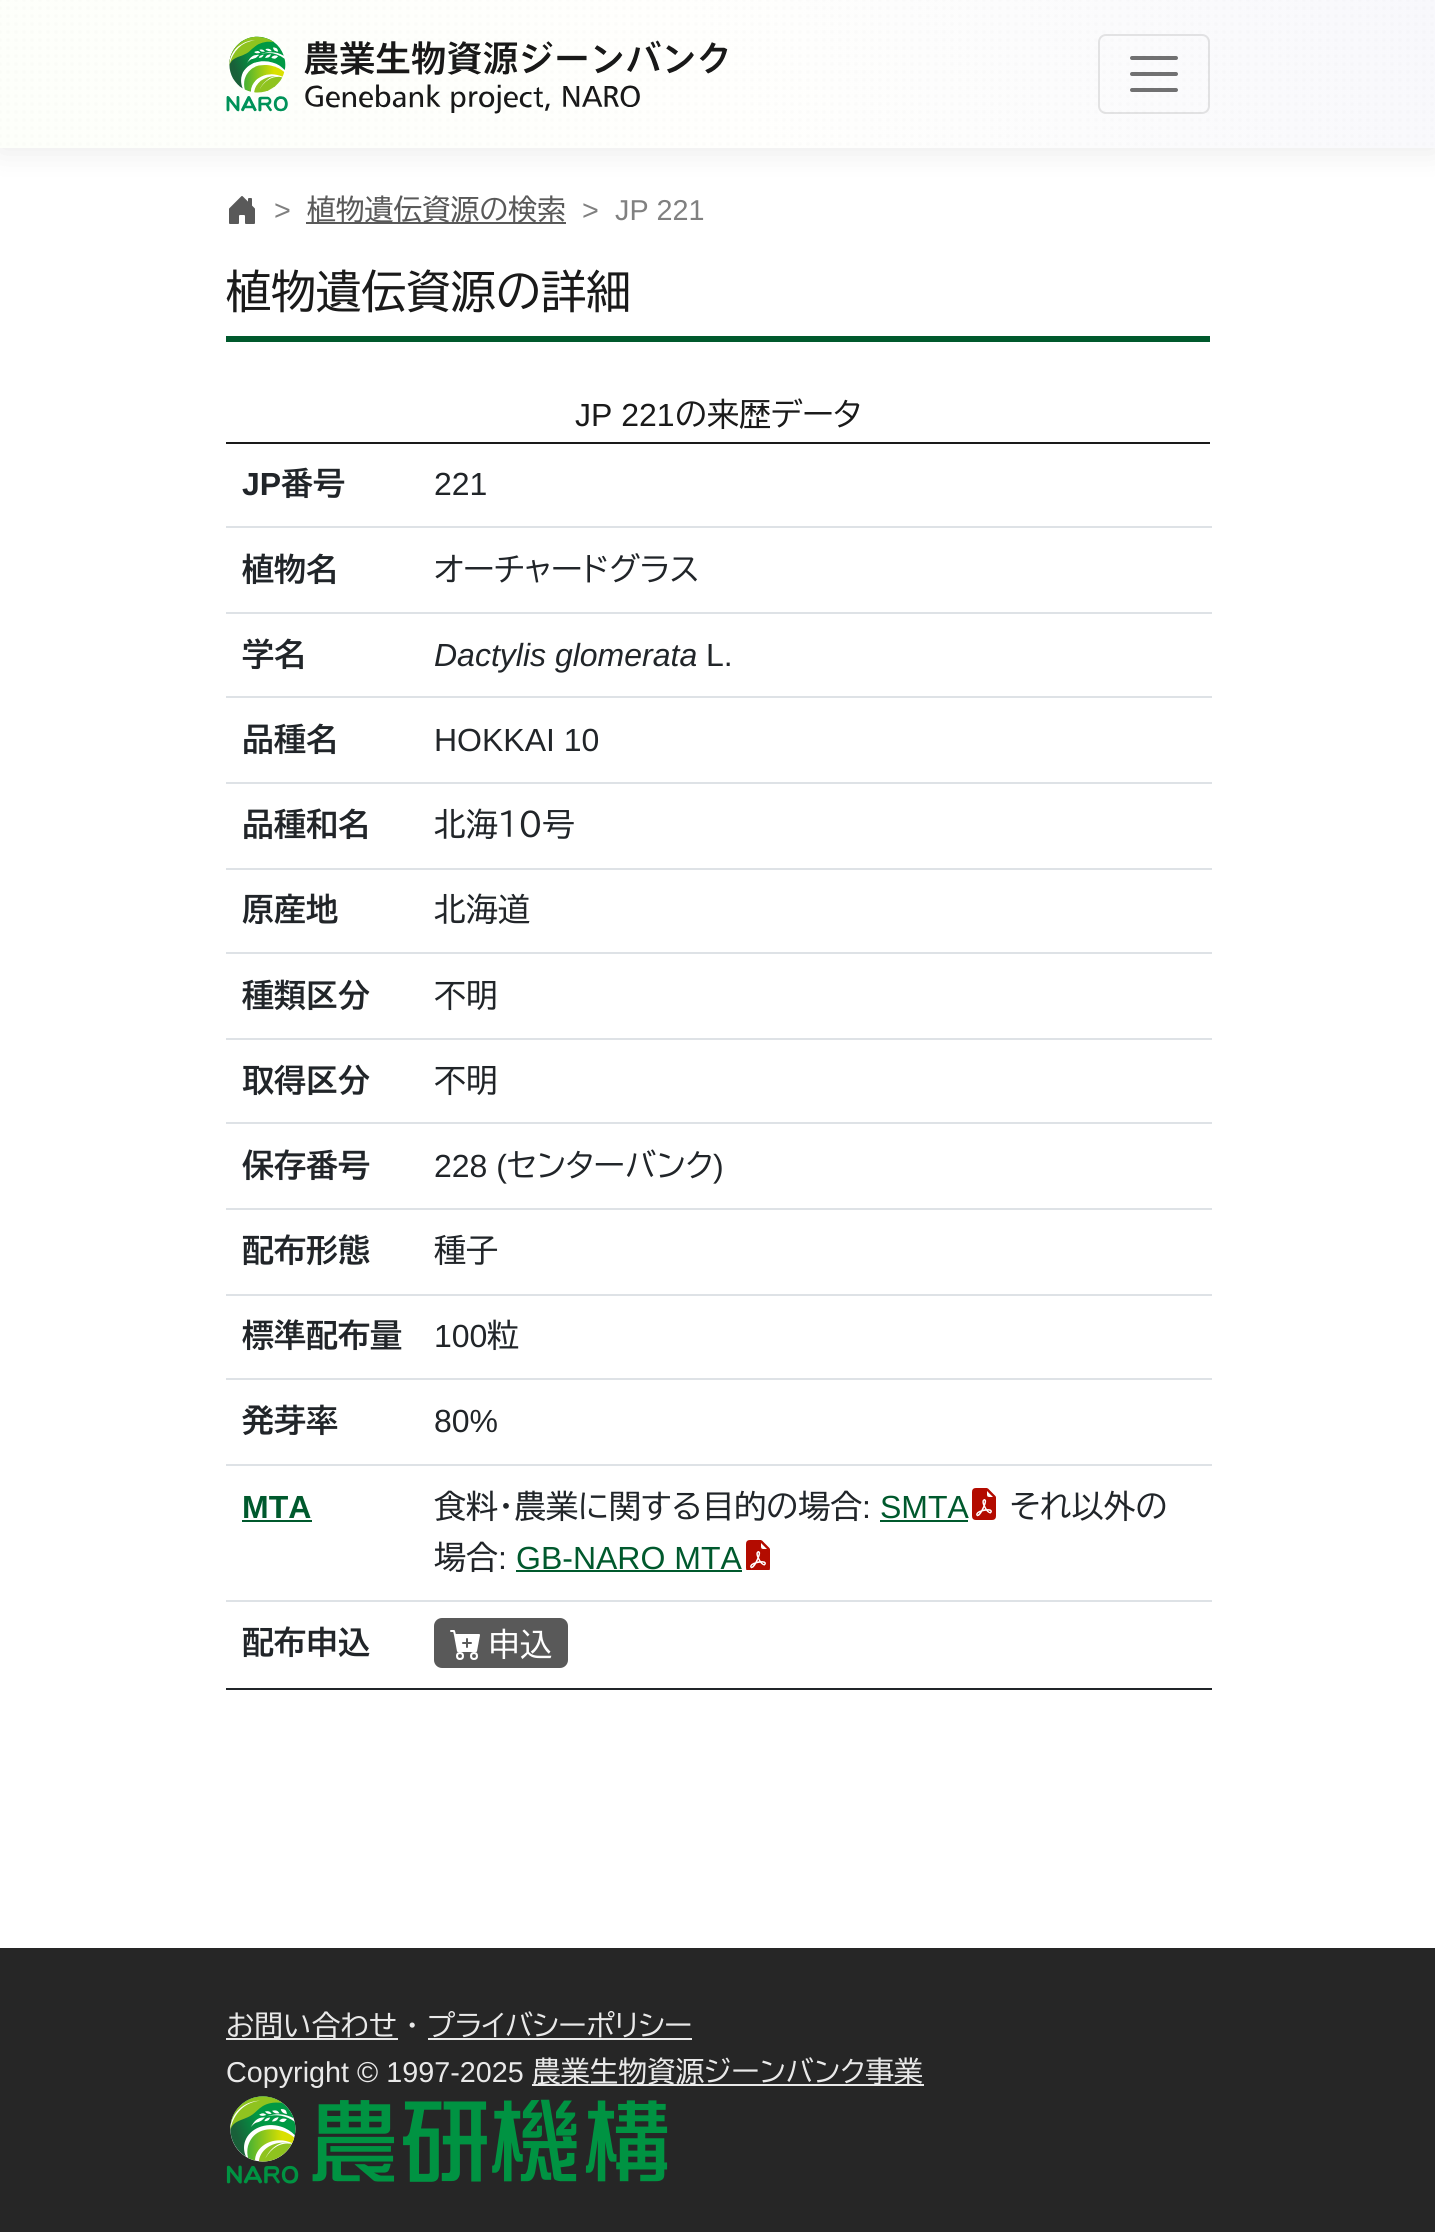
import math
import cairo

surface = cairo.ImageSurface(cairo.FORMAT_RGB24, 1435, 2232)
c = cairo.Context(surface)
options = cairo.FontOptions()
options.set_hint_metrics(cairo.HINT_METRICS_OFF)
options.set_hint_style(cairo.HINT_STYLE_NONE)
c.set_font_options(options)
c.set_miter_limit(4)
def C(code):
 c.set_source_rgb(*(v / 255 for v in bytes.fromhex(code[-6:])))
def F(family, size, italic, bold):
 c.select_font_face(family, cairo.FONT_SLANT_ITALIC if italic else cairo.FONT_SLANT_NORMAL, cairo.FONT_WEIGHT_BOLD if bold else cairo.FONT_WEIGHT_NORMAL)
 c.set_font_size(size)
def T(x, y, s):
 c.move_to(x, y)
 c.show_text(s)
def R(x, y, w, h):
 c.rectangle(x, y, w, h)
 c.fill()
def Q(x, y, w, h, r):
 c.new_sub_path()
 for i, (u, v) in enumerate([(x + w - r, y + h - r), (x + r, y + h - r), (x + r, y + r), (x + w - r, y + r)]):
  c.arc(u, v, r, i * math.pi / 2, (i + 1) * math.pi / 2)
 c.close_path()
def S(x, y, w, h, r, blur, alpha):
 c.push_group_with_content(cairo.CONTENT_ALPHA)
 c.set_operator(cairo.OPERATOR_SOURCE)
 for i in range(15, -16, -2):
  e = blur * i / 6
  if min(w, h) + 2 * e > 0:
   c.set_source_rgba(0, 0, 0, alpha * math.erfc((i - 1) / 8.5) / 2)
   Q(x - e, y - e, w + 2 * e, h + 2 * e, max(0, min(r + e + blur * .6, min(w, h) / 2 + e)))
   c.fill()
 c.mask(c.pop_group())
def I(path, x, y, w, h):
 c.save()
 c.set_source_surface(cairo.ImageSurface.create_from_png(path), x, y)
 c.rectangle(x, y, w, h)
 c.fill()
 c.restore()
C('ffffff')
c.paint()
I('3.png',229,196,26,28)
C('000000')
S(0,0,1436,148,0,16,.1)
I('1.png',0,0,1435,148)
I('2.png',226,36,502,78)
Q(1099,35,110,78,7)
c.set_source_rgba(0,0,0,0.1)
c.stroke()
c.new_path()
c.move_to(1132,58)
c.line_to(1176,58)
c.move_to(1132,74)
c.line_to(1176,74)
c.move_to(1132,90)
c.line_to(1176,90)
c.set_source_rgba(0,0,0,0.55)
c.set_line_width(4)
c.set_line_cap(cairo.LINE_CAP_ROUND)
c.stroke()
F('Liberation Sans',28.75,0,0)
C('808080')
T(274,220,'>')
C('595959')
R(306,222,260,2)
F('BIZ UDPGothic',28.75,0,0)
T(307,220,'植物遺伝資源の検索')
F('Liberation Sans',28.75,0,0)
C('808080')
T(582,220,'>')
T(615,220,'JP 221')
C('00592d')
R(226,336,984,6)
F('BIZ UDPGothic',45,0,0)
C('1a1a1a')
T(226,308,'植物遺伝資源の詳細')
R(226,442,984,2)
F('Liberation Sans',32,0,0)
T(575,426,'JP 221')
F('BIZ UDPGothic',32,0,0)
T(675,426,'の来歴データ')
F('Liberation Sans',32,0,1)
C('212529')
T(242,495,'JP')
F('BIZ UDPGothic',32,0,1)
T(281,495,'番号')
C('dee2e6')
R(226,526,986,2)
F('Liberation Sans',32,0,0)
C('212529')
T(434,495,'221')
F('BIZ UDPGothic',32,0,1)
T(242,581,'植物名')
C('dee2e6')
R(226,612,986,2)
F('BIZ UDPGothic',32,0,0)
C('212529')
T(434,581,'オーチャードグラス')
F('BIZ UDPGothic',32,0,1)
T(242,666,'学名')
C('dee2e6')
R(226,696,986,2)
F('Liberation Sans',32,1,0)
C('212529')
T(434,666,'Dactylis glomerata')
F('Liberation Sans',32,0,0)
T(706,666,'L.')
F('BIZ UDPGothic',32,0,1)
T(242,751,'品種名')
C('dee2e6')
R(226,782,986,2)
F('Liberation Sans',32,0,0)
C('212529')
T(434,751,'HOKKAI 10')
F('BIZ UDPGothic',32,0,1)
T(242,836,'品種和名')
C('dee2e6')
R(226,868,986,2)
F('BIZ UDPGothic',32,0,0)
C('212529')
T(434,836,'北海１０号')
F('BIZ UDPGothic',32,0,1)
T(242,921,'原産地')
C('dee2e6')
R(226,952,986,2)
F('BIZ UDPGothic',32,0,0)
C('212529')
T(434,921,'北海道')
F('BIZ UDPGothic',32,0,1)
T(242,1007,'種類区分')
C('dee2e6')
R(226,1038,986,2)
F('BIZ UDPGothic',32,0,0)
C('212529')
T(434,1007,'不明')
F('BIZ UDPGothic',32,0,1)
T(242,1092,'取得区分')
C('dee2e6')
R(226,1122,986,2)
F('BIZ UDPGothic',32,0,0)
C('212529')
T(434,1092,'不明')
F('BIZ UDPGothic',32,0,1)
T(242,1177,'保存番号')
C('dee2e6')
R(226,1208,986,2)
F('Liberation Sans',32,0,0)
C('212529')
T(434,1177,'228 (')
F('BIZ UDPGothic',32,0,0)
T(507,1177,'センターバンク')
F('Liberation Sans',32,0,0)
T(713,1177,')')
F('BIZ UDPGothic',32,0,1)
T(242,1262,'配布形態')
C('dee2e6')
R(226,1294,986,2)
F('BIZ UDPGothic',32,0,0)
C('212529')
T(434,1262,'種子')
F('BIZ UDPGothic',32,0,1)
T(242,1347,'標準配布量')
C('dee2e6')
R(226,1378,986,2)
F('Liberation Sans',32,0,0)
C('212529')
T(434,1347,'100')
F('BIZ UDPGothic',32,0,0)
T(487,1347,'粒')
F('BIZ UDPGothic',32,0,1)
T(242,1432,'発芽率')
C('dee2e6')
R(226,1464,986,2)
F('Liberation Sans',32,0,0)
C('212529')
T(434,1432,'80%')
F('Liberation Sans',32,0,1)
C('00592d')
T(242,1518,'MTA')
R(242,1520,70,2)
C('dee2e6')
R(226,1600,986,2)
F('BIZ UDPGothic',32,0,0)
C('212529')
T(434,1518,'食料・農業に関する目的の場合')
F('Liberation Sans',32,0,0)
T(862,1518,':')
C('00592d')
T(880,1518,'SMTA')
R(880,1520,88,2)
I('4.png',972,1488,24,32)
F('BIZ UDPGothic',32,0,0)
C('212529')
T(1010,1518,'それ以外の')
T(434,1569,'場合')
F('Liberation Sans',32,0,0)
T(498,1569,':')
C('00592d')
T(516,1569,'GB-NARO MTA')
R(516,1570,226,2)
I('5.png',746,1540,24,30)
C('212529')
R(226,1688,986,2)
F('BIZ UDPGothic',32,0,1)
T(242,1654,'配布申込')
C('595959')
Q(434,1618,134,50,8)
c.fill()
I('6.png',450,1630,30,30)
F('BIZ UDPGothic',32,0,0)
C('ffffff')
T(488,1656,'申込')
C('262626')
R(0,1948,1435,284)
C('e9e9e9')
R(226,2038,172,2)
F('BIZ UDPGothic',28.75,0,0)
T(226,2036,'お問い合わせ')
T(405,2036,'・')
T(427,2036,'プライバシーポリシー')
R(428,2038,264,2)
F('Liberation Sans',28.75,0,0)
T(226,2082,'Copyright © 1997-2025')
R(532,2084,392,2)
F('BIZ UDPGothic',28.75,0,0)
T(532,2082,'農業生物資源ジーンバンク事業')
I('7.png',226,2096,442,88)
surface.write_to_png('o.png')
